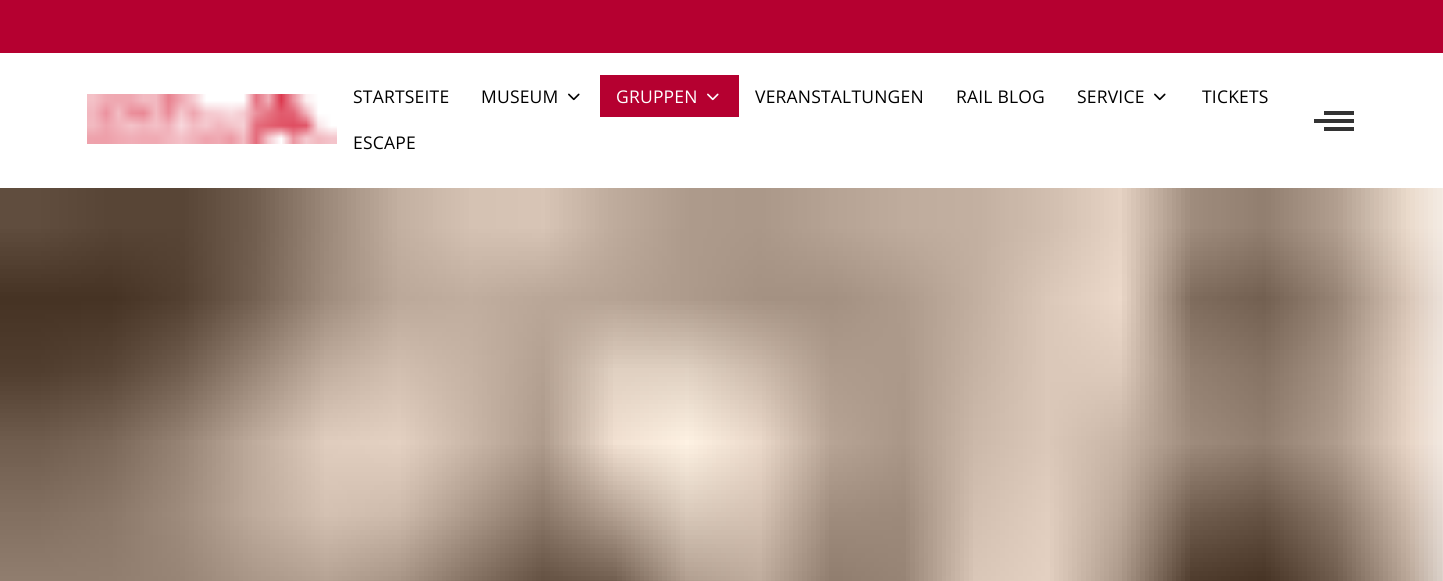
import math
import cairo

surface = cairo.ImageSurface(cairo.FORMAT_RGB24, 1443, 581)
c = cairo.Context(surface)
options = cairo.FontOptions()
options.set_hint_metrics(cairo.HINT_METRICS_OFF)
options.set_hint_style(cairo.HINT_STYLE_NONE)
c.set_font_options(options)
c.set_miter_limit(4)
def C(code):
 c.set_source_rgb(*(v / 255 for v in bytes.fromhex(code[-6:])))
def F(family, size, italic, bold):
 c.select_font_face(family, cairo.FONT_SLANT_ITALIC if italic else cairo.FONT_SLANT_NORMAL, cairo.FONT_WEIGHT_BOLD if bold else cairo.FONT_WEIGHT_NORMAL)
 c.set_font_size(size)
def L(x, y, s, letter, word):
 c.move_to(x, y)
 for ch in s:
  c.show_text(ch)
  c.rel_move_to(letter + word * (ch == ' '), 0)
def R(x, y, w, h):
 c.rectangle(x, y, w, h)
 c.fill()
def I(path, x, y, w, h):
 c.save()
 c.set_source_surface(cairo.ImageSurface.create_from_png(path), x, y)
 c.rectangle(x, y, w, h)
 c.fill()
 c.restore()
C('ffffff')
c.paint()
C('b50030')
R(0,0,1443,53)
I('1.png',87,94,250,50)
F('Open Sans',17.5,0,0)
C('000000')
L(353,103,'STARTSEITE',.2,0)
L(481,103,'MUSEUM',.2,0)
I('2.png',568,93,12,8)
C('b50030')
R(600,75,139,42)
C('ffffff')
L(616,103,'GRUPPEN',.2,0)
I('3.png',707,93,12,8)
C('000000')
L(755,103,'VERANSTALTUNGEN',.2,0)
L(956,103,'RAIL BLOG',.2,0)
L(1077,103,'SERVICE',.2,0)
I('2.png',1154,93,12,8)
L(1202,103,'TICKETS',.2,0)
L(353,149,'ESCAPE',.2,0)
C('333333')
R(1314,119,40,4)
R(1324,111,30,4)
R(1324,127,30,4)
I('4.png',0,188,1443,393)
surface.write_to_png('o.png')
